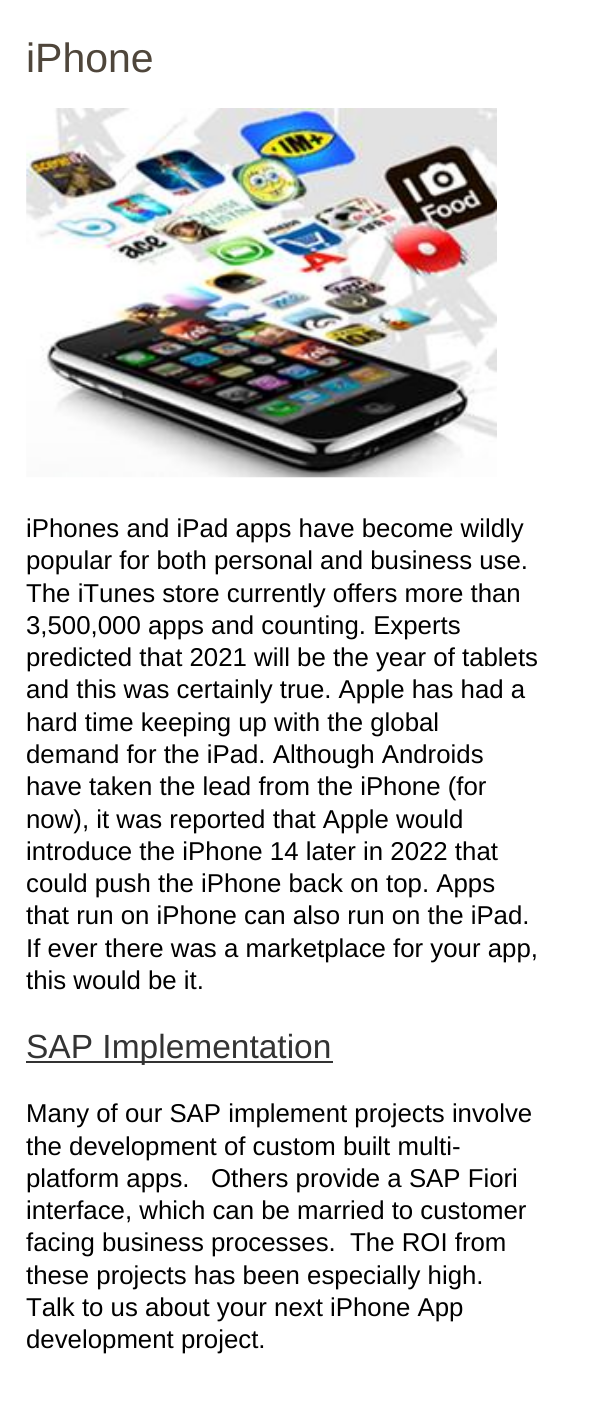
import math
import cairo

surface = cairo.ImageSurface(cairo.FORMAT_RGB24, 599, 1414)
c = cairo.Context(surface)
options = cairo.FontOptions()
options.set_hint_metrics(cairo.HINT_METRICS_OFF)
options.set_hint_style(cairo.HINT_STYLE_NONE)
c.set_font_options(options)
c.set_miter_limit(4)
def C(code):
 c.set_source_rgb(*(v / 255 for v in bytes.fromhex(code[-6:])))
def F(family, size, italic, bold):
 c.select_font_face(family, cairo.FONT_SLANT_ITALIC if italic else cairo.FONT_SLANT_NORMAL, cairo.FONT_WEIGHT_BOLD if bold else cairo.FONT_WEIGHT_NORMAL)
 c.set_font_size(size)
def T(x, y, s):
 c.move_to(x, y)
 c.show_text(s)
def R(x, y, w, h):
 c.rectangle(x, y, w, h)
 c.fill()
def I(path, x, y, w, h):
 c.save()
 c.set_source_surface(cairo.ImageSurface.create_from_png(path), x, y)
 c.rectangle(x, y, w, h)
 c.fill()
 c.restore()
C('ffffff')
c.paint()
F('Liberation Sans',41,0,0)
C('4f463b')
T(26,72,'iPhone')
I('1.png',26,108,471,370)
F('Liberation Sans',25.8,0,0)
C('000000')
T(26,537,'iPhones and iPad apps have become wildly')
T(26,569,'popular for both personal and business use.')
T(26,602,'The iTunes store currently offers more than')
T(26,634,'3,500,000 apps and counting. Experts')
T(26,666,'predicted that 2021 will be the year of tablets')
T(26,698,'and this was certainly true. Apple has had a')
T(26,731,'hard time keeping up with the global')
T(26,763,'demand for the iPad. Although Androids')
T(26,795,'have taken the lead from the iPhone (for')
T(26,828,'now), it was reported that Apple would')
T(26,860,'introduce the iPhone 14 later in 2022 that')
T(26,892,'could push the iPhone back on top. Apps')
T(26,924,'that run on iPhone can also run on the iPad.')
T(26,957,'If ever there was a marketplace for your app,')
T(26,989,'this would be it.')
C('333333')
R(26,1061,307,2)
F('Liberation Sans',33.5,0,0)
T(26,1058,'SAP Implementation')
F('Liberation Sans',25.8,0,0)
C('000000')
T(26,1122,'Many of our SAP implement projects involve')
T(26,1155,'the development of custom built multi-')
T(26,1187,'platform apps.   Others provide a SAP Fiori')
T(26,1219,'interface, which can be married to customer')
T(26,1251,'facing business processes.  The ROI from')
T(26,1284,'these projects has been especially high.')
T(26,1316,'Talk to us about your next iPhone App')
T(26,1348,'development project.')
surface.write_to_png('o.png')
